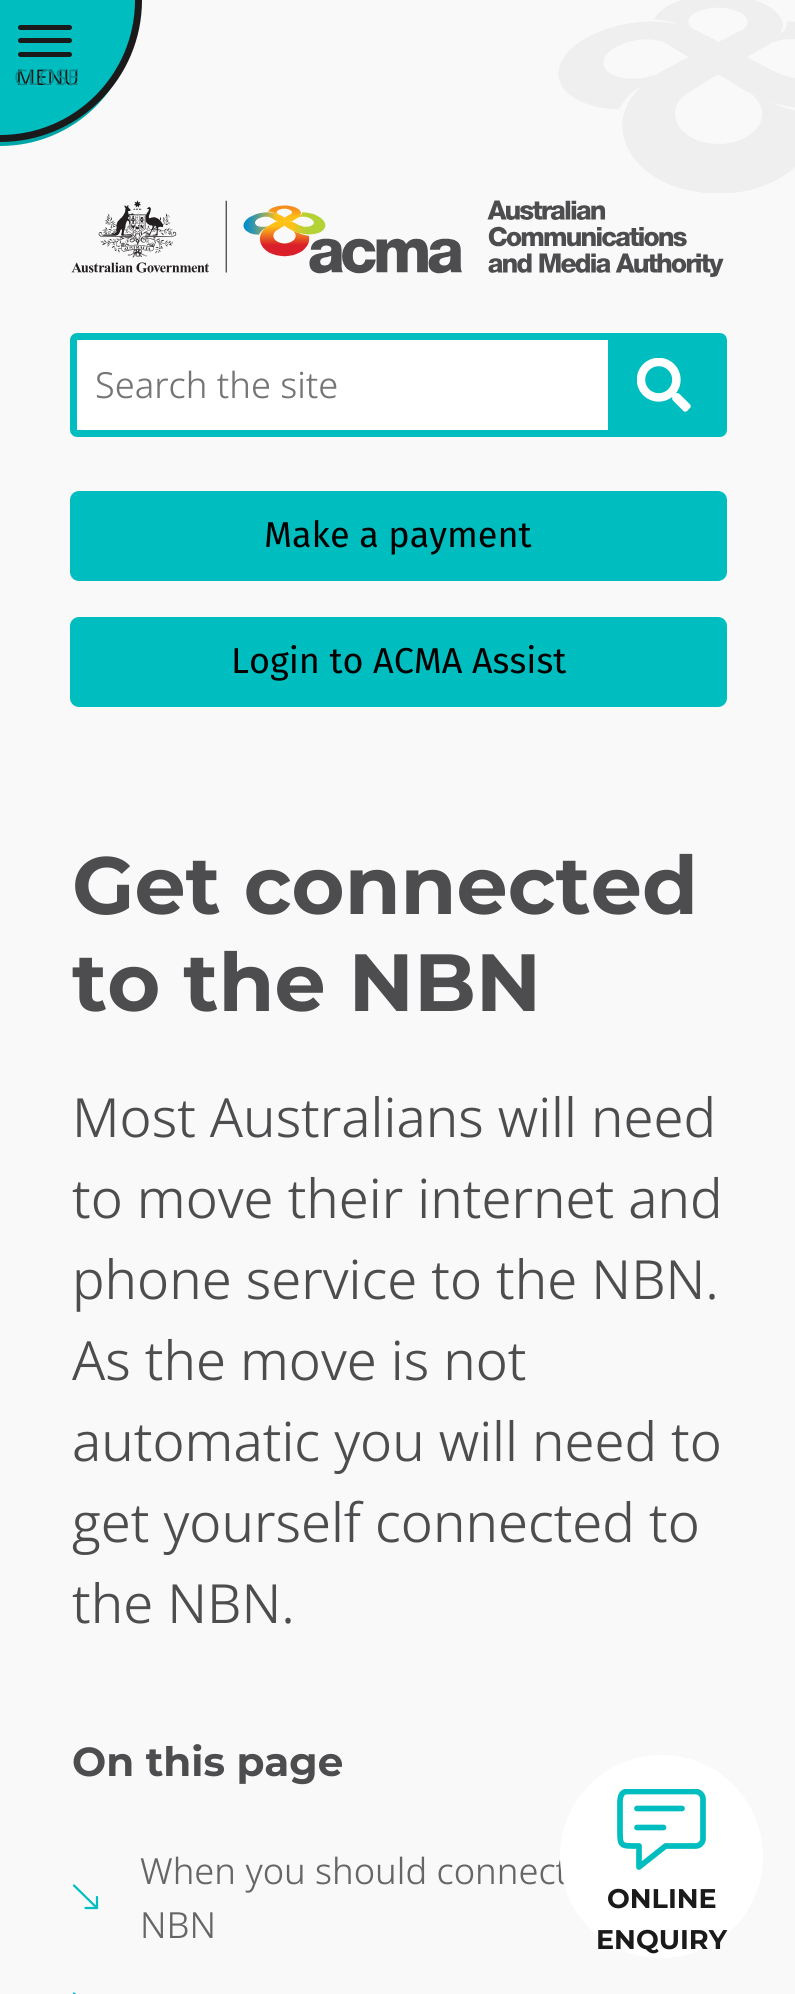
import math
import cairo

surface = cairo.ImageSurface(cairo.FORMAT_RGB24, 795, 1994)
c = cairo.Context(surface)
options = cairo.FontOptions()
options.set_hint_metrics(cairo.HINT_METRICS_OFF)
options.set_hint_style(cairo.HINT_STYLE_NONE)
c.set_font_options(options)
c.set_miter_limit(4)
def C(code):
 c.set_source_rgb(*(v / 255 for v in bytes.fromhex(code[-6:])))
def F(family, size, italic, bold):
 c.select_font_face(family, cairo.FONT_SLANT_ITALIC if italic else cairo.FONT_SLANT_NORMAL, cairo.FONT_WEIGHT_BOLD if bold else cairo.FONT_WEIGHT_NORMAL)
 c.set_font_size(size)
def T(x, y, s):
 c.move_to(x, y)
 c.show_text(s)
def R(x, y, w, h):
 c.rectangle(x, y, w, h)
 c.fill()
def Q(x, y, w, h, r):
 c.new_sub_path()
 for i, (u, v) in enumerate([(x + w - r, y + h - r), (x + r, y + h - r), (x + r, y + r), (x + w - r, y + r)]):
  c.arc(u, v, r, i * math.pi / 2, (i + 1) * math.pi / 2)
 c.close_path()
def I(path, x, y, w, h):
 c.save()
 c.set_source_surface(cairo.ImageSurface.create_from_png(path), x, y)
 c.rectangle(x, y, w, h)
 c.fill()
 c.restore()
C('f9f9f9')
c.paint()
I('1.png',558,0,237,193)
C('00a5a7')
c.new_path()
c.move_to(0,135)
c.line_to(0,146)
c.curve_to(75,146,135,86,135,11)
c.curve_to(129,80,71,135,0,135)
c.close_path()
c.fill()
C('00bdc0')
c.new_path()
c.move_to(-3.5,-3.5)
c.line_to(138.5,-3.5)
c.line_to(138.5,0)
c.curve_to(138.5,76.5,76.5,138.5,0,138.5)
c.line_to(-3.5,138.5)
c.close_path()
c.fill_preserve()
C('1a1a1a')
c.set_line_width(7)
c.stroke()
Q(18,38,54,5,2.5)
c.fill()
Q(18,25,54,5,2.5)
c.fill()
Q(18,52,54,5,2.5)
c.fill()
F('Open Sans',21.5,0,0)
T(16,85,'MENU')
C('088b8d')
T(14,85,'CLOSE')
I('2.png',71,200,653,77)
Q(73.5,336.5,650,97,3.5)
C('00bec0')
c.stroke()
C('ffffff')
c.new_path()
c.move_to(86,340)
c.line_to(608,340)
c.line_to(608,430)
c.line_to(86,430)
c.curve_to(81,430,77,426,77,421)
c.line_to(77,349)
c.curve_to(77,344,81,340,86,340)
c.close_path()
c.fill()
F('Open Sans Light',36,0,0)
C('757575')
T(95,398,'Search the site')
C('00bec0')
R(608,340,112,90)
I('3.png',637,358,54,54)
Q(70,491,657,90,9)
c.fill()
F('Fira Sans',36,0,0)
C('000000')
T(264,547,'Make a payment')
C('00bec0')
Q(70,617,657,90,9)
c.fill()
C('000000')
T(231,673,'Login to ACMA Assist')
F('Montserrat',81,0,1)
C('4d4d4f')
T(72,914,'Get connected')
T(72,1011,'to the NBN')
F('Open Sans Light',54,0,0)
T(72,1137,'Most Australians will need')
T(72,1218,'to move their internet and')
T(72,1299,'phone service to the NBN.')
T(72,1380,'As the move is not')
T(72,1461,'automatic you will need to')
T(72,1542,'get yourself connected to')
T(72,1623,'the NBN.')
F('Montserrat',40.5,0,1)
T(72,1776,'On this page')
c.new_path()
c.move_to(74,1885.5)
c.line_to(97,1908)
c.move_to(85.5,1908)
c.line_to(97,1908)
c.line_to(97,1897)
C('00bec0')
c.set_line_width(2.2)
c.set_line_cap(cairo.LINE_CAP_ROUND)
c.set_line_join(cairo.LINE_JOIN_ROUND)
c.stroke()
F('Open Sans Light',36,0,0)
C('666666')
T(140,1884,'When you should connect')
T(140,1938,'NBN')
c.new_path()
c.move_to(74,1993.5)
c.line_to(97,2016)
C('00bec0')
c.stroke()
C('ffffff')
c.arc(661.5,1856.5,101.5,0,2 * math.pi)
c.fill()
c.save()
c.rectangle(617,1789,90,81)
c.clip()
c.new_path()
c.move_to(627.5,1791.5)
c.line_to(695.5,1791.5)
c.curve_to(699.5,1791.5,703,1795,703,1799)
c.line_to(703,1838.5)
c.curve_to(703,1843,699.5,1846,695.5,1846)
c.line_to(665.5,1846)
c.line_to(639,1867)
c.line_to(639,1846)
c.curve_to(619,1846,620,1847,620,1825.5)
c.line_to(620,1805.5)
c.curve_to(620,1800,619.5,1791.5,627.5,1791.5)
c.close_path()
C('00bec0')
c.set_line_width(5.7)
c.stroke()
c.restore()
c.new_path()
c.move_to(637,1808.5)
c.line_to(682,1808.5)
c.move_to(637,1827.5)
c.line_to(663.5,1827.5)
C('00bec0')
c.set_line_width(5.7)
c.stroke()
F('Montserrat',27,0,1)
C('1a1a1a')
T(607,1908,'ONLINE')
T(596,1949,'ENQUIRY')
surface.write_to_png('o.png')
